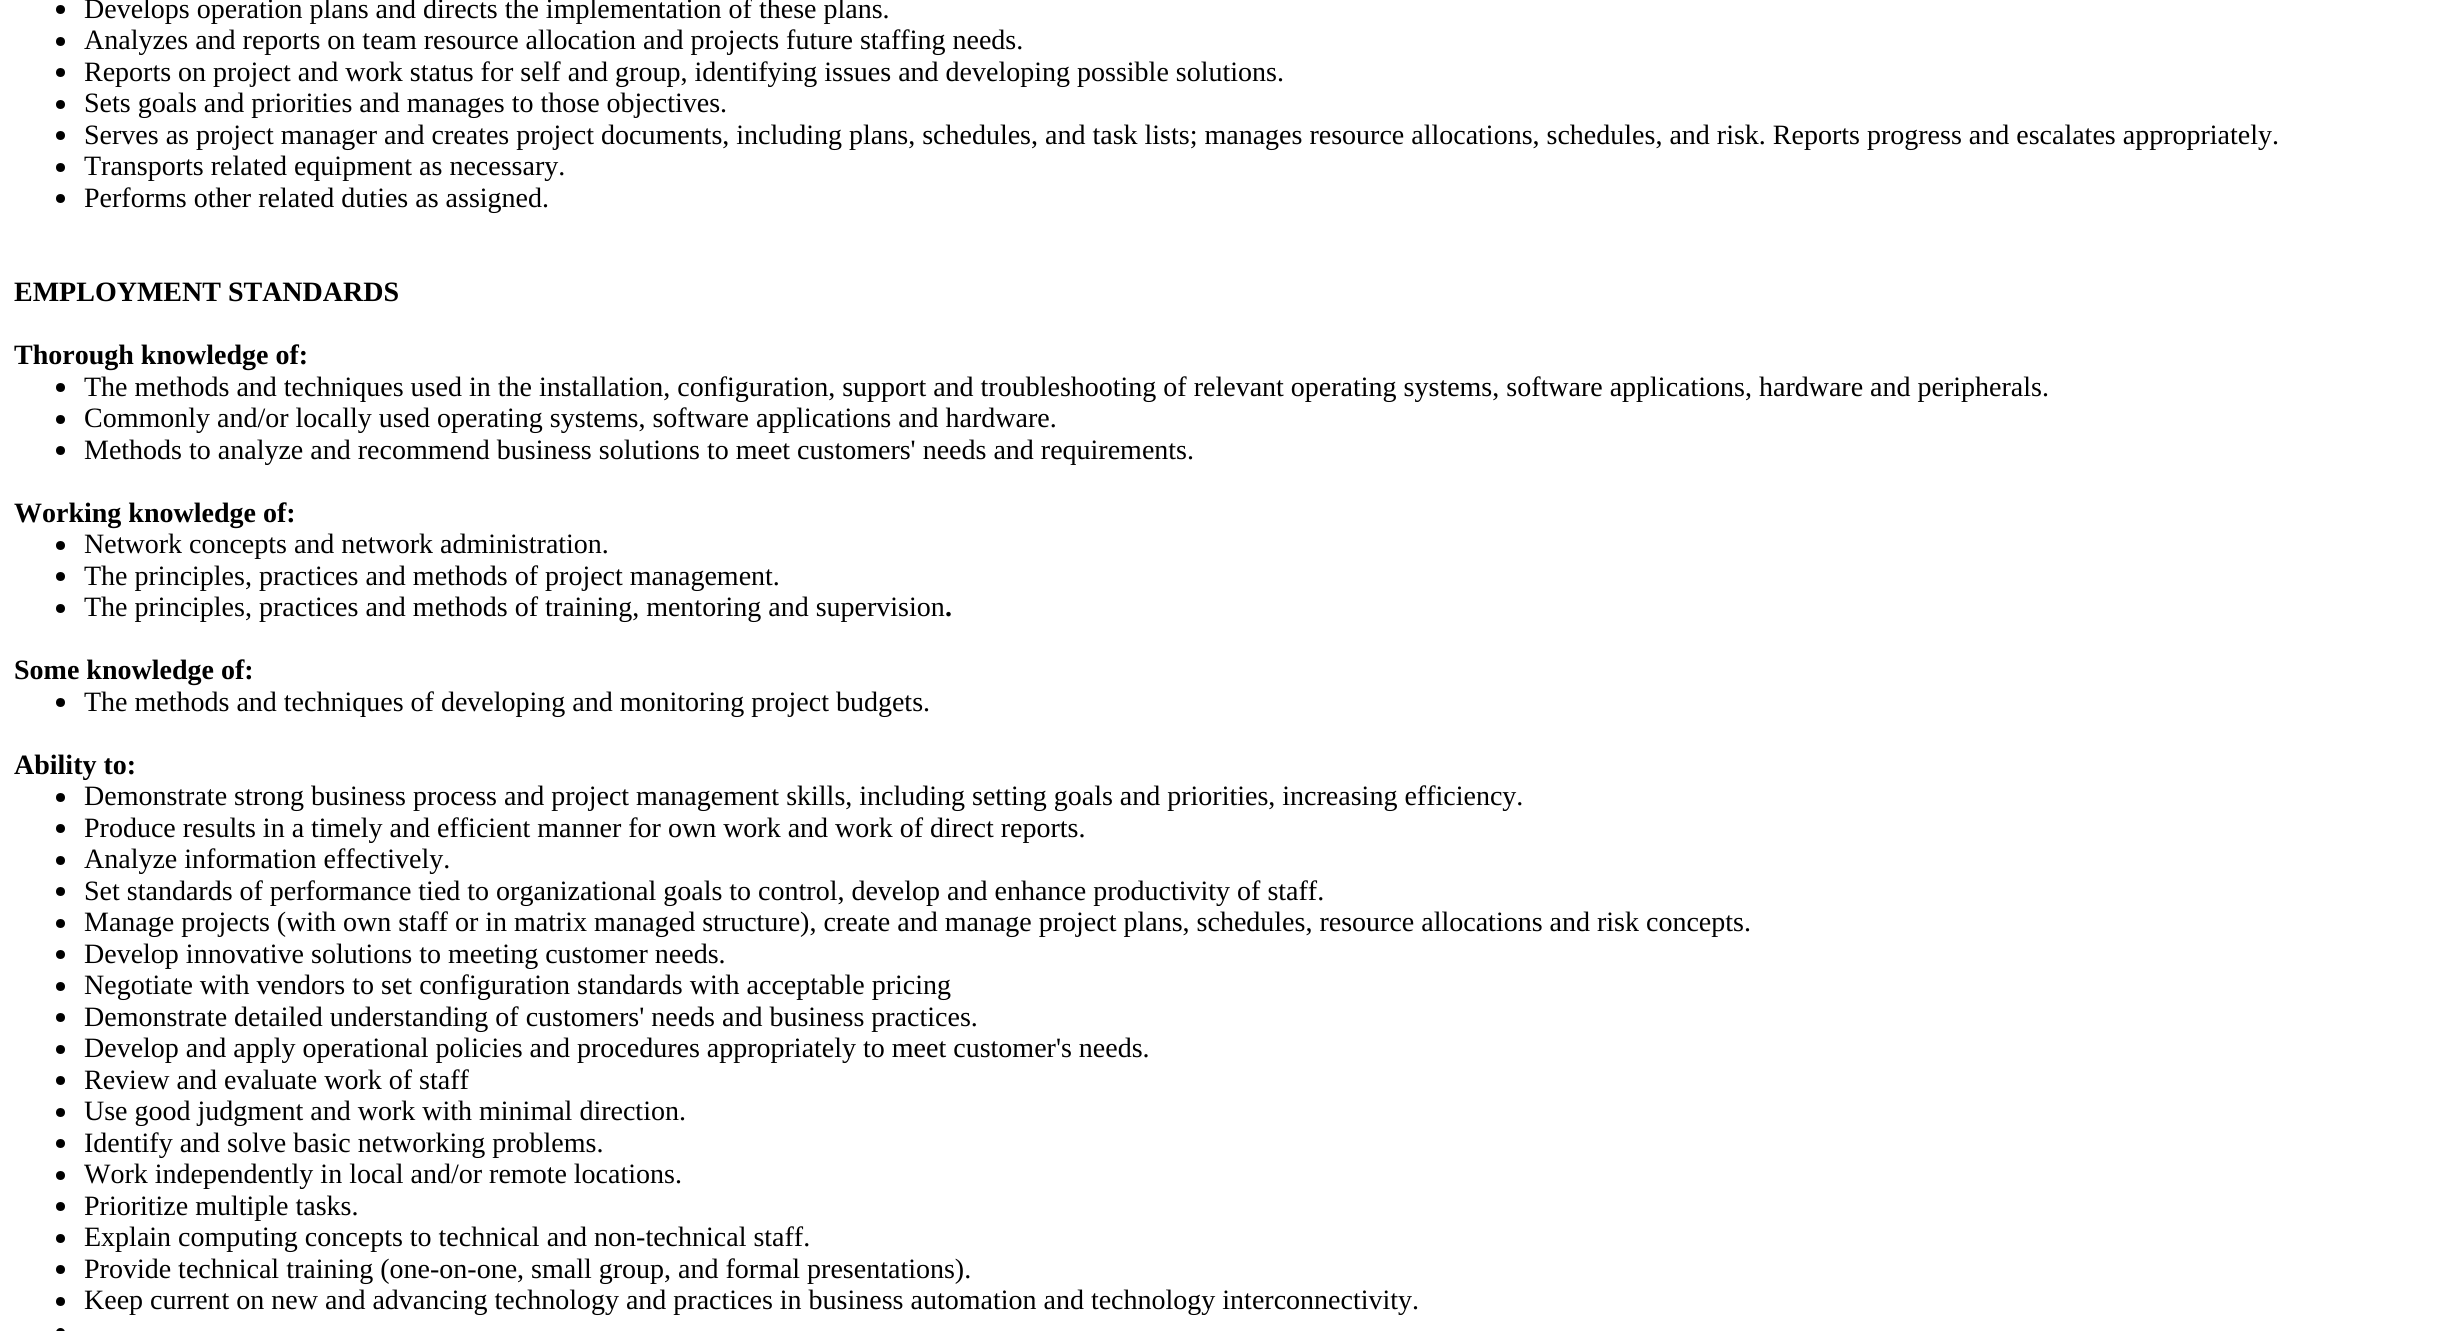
import math
import cairo

surface = cairo.ImageSurface(cairo.FORMAT_RGB24, 2461, 1331)
c = cairo.Context(surface)
options = cairo.FontOptions()
options.set_hint_metrics(cairo.HINT_METRICS_OFF)
options.set_hint_style(cairo.HINT_STYLE_NONE)
c.set_font_options(options)
c.set_miter_limit(4)
def C(code):
 c.set_source_rgb(*(v / 255 for v in bytes.fromhex(code[-6:])))
def F(family, size, italic, bold):
 c.select_font_face(family, cairo.FONT_SLANT_ITALIC if italic else cairo.FONT_SLANT_NORMAL, cairo.FONT_WEIGHT_BOLD if bold else cairo.FONT_WEIGHT_NORMAL)
 c.set_font_size(size)
def T(x, y, s):
 c.move_to(x, y)
 c.show_text(s)
def Q(x, y, w, h, r):
 c.new_sub_path()
 for i, (u, v) in enumerate([(x + w - r, y + h - r), (x + r, y + h - r), (x + r, y + r), (x + w - r, y + r)]):
  c.arc(u, v, r, i * math.pi / 2, (i + 1) * math.pi / 2)
 c.close_path()
C('ffffff')
c.paint()
C('000000')
c.arc(60.5,9.5,4.5,0,2 * math.pi)
c.fill()
F('Liberation Serif',28,0,0)
T(84,18,'Develops operation plans and directs the implementation of these plans.')
c.new_path()
c.arc(60.5,41.5,4.5,0,2 * math.pi)
c.fill()
T(84,49,'Analyzes and reports on team resource allocation and projects future staffing needs.')
c.new_path()
c.arc(60.5,72.5,4.5,0,2 * math.pi)
c.fill()
T(84,81,'Reports on project and work status for self and group, identifying issues and developing possible solutions.')
c.new_path()
c.arc(60.5,104.5,4.5,0,2 * math.pi)
c.fill()
T(84,112,'Sets goals and priorities and manages to those objectives.')
c.new_path()
c.arc(60.5,135.5,4.5,0,2 * math.pi)
c.fill()
T(84,144,'Serves as project manager and creates project documents, including plans, schedules, and task lists; manages resource allocations, schedules, and risk. Reports progress and escalates appropriately.')
c.new_path()
c.arc(60.5,167.5,4.5,0,2 * math.pi)
c.fill()
T(84,175,'Transports related equipment as necessary.')
c.new_path()
c.arc(60.5,198.5,4.5,0,2 * math.pi)
c.fill()
T(84,207,'Performs other related duties as assigned.')
F('Liberation Serif',28,0,1)
T(14,301,'EMPLOYMENT STANDARDS')
T(14,364,'Thorough knowledge of:')
c.new_path()
c.arc(60.5,387.5,4.5,0,2 * math.pi)
c.fill()
F('Liberation Serif',28,0,0)
T(84,396,'The methods and techniques used in the installation, configuration, support and troubleshooting of relevant operating systems, software applications, hardware and peripherals.')
c.new_path()
c.arc(60.5,419.5,4.5,0,2 * math.pi)
c.fill()
T(84,427,'Commonly and/or locally used operating systems, software applications and hardware.')
c.new_path()
c.arc(60.5,450.5,4.5,0,2 * math.pi)
c.fill()
T(84,459,'Methods to analyze and recommend business solutions to meet customers\' needs and requirements.')
F('Liberation Serif',28,0,1)
T(14,522,'Working knowledge of:')
c.new_path()
c.arc(60.5,545.5,4.5,0,2 * math.pi)
c.fill()
F('Liberation Serif',28,0,0)
T(84,553,'Network concepts and network administration.')
c.new_path()
c.arc(60.5,576.5,4.5,0,2 * math.pi)
c.fill()
T(84,585,'The principles, practices and methods of project management.')
c.new_path()
c.arc(60.5,608.5,4.5,0,2 * math.pi)
c.fill()
T(84,616,'The principles, practices and methods of training, mentoring and supervision')
F('Liberation Serif',28,0,1)
T(945,616,'.')
T(14,679,'Some knowledge of:')
c.new_path()
c.arc(60.5,702.5,4.5,0,2 * math.pi)
c.fill()
F('Liberation Serif',28,0,0)
T(84,711,'The methods and techniques of developing and monitoring project budgets.')
F('Liberation Serif',28,0,1)
T(14,774,'Ability to:')
c.new_path()
c.arc(60.5,797.5,4.5,0,2 * math.pi)
c.fill()
F('Liberation Serif',28,0,0)
T(84,805,'Demonstrate strong business process and project management skills, including setting goals and priorities, increasing efficiency.')
c.new_path()
c.arc(60.5,828.5,4.5,0,2 * math.pi)
c.fill()
T(84,837,'Produce results in a timely and efficient manner for own work and work of direct reports.')
c.new_path()
c.arc(60.5,860.5,4.5,0,2 * math.pi)
c.fill()
T(84,868,'Analyze information effectively.')
c.new_path()
c.arc(60.5,891.5,4.5,0,2 * math.pi)
c.fill()
T(84,900,'Set standards of performance tied to organizational goals to control, develop and enhance productivity of staff.')
c.new_path()
c.arc(60.5,923.5,4.5,0,2 * math.pi)
c.fill()
T(84,931,'Manage projects (with own staff or in matrix managed structure), create and manage project plans, schedules, resource allocations and risk concepts.')
c.new_path()
c.arc(60.5,954.5,4.5,0,2 * math.pi)
c.fill()
T(84,963,'Develop innovative solutions to meeting customer needs.')
c.new_path()
c.arc(60.5,986.5,4.5,0,2 * math.pi)
c.fill()
T(84,994,'Negotiate with vendors to set configuration standards with acceptable pricing')
c.new_path()
c.arc(60.5,1017.5,4.5,0,2 * math.pi)
c.fill()
T(84,1026,'Demonstrate detailed understanding of customers\' needs and business practices.')
c.new_path()
c.arc(60.5,1049.5,4.5,0,2 * math.pi)
c.fill()
T(84,1057,'Develop and apply operational policies and procedures appropriately to meet customer\'s needs.')
c.new_path()
c.arc(60.5,1080.5,4.5,0,2 * math.pi)
c.fill()
T(84,1089,'Review and evaluate work of staff')
c.new_path()
c.arc(60.5,1112.5,4.5,0,2 * math.pi)
c.fill()
T(84,1120,'Use good judgment and work with minimal direction.')
c.new_path()
c.arc(60.5,1143.5,4.5,0,2 * math.pi)
c.fill()
T(84,1152,'Identify and solve basic networking problems.')
c.new_path()
c.arc(60.5,1175.5,4.5,0,2 * math.pi)
c.fill()
T(84,1183,'Work independently in local and/or remote locations.')
c.new_path()
c.arc(60.5,1206.5,4.5,0,2 * math.pi)
c.fill()
T(84,1215,'Prioritize multiple tasks.')
c.new_path()
c.arc(60.5,1238.5,4.5,0,2 * math.pi)
c.fill()
T(84,1246,'Explain computing concepts to technical and non-technical staff.')
c.new_path()
c.arc(60.5,1269.5,4.5,0,2 * math.pi)
c.fill()
T(84,1278,'Provide technical training (one-on-one, small group, and formal presentations).')
c.new_path()
c.arc(60.5,1301.5,4.5,0,2 * math.pi)
c.fill()
T(84,1309,'Keep current on new and advancing technology and practices in business automation and technology interconnectivity.')
Q(56,1328,9,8,4.5)
c.fill()
surface.write_to_png('o.png')
